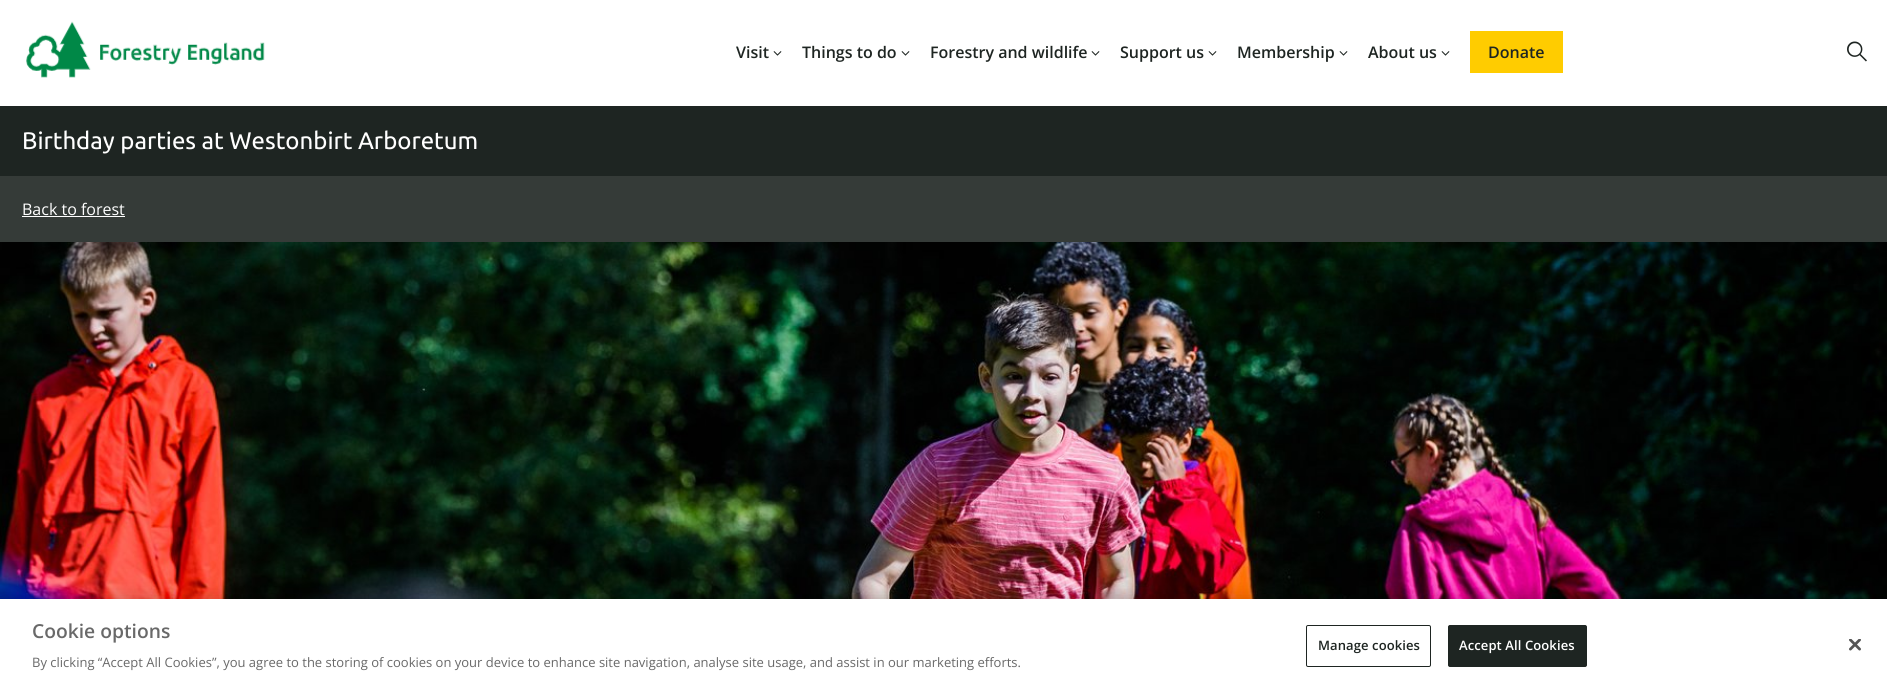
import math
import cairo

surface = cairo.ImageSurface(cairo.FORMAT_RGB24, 1887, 696)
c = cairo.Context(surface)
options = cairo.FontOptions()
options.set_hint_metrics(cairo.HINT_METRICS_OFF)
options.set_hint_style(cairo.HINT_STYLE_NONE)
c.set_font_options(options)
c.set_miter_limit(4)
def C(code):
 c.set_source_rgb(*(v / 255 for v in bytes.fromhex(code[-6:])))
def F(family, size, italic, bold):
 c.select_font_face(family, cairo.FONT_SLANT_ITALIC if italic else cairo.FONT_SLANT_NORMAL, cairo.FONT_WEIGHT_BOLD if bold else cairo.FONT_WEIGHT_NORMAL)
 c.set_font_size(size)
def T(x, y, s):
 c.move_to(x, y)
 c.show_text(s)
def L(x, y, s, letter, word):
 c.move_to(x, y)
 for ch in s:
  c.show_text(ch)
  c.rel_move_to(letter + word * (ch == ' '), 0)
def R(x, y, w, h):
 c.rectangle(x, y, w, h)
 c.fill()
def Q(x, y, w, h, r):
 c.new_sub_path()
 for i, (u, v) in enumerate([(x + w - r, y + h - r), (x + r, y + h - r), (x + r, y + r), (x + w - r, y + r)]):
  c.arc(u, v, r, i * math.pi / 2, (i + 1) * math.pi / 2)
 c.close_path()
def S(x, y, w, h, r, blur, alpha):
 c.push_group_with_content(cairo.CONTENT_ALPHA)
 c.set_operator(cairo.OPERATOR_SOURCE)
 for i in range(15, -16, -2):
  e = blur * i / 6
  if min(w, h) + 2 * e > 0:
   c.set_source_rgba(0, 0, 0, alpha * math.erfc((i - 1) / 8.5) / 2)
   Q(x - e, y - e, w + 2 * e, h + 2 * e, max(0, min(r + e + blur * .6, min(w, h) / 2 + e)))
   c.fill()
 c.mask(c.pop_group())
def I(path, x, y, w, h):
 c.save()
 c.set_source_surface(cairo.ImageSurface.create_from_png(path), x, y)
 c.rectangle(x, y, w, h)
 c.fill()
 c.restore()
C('ffffff')
c.paint()
I('1.png',26,21,239,57)
F('Open Sans SemiBold',16,0,0)
C('1e2522')
T(736,58,'Visit')
I('2.png',773,51,9,5)
T(802,58,'Things to do')
I('2.png',901,51,9,5)
T(930,58,'Forestry and wildlife')
I('2.png',1091,51,9,5)
T(1120,58,'Support us')
I('2.png',1208,51,9,5)
T(1237,58,'Membership')
I('2.png',1339,51,9,5)
T(1368,58,'About us')
I('2.png',1441,51,9,5)
C('ffcc00')
R(1470,31,93,42)
C('1e2522')
T(1488,58,'Donate')
I('3.png',1847,41,20,21)
C('353b38')
R(0,176,1887,66)
C('1e2522')
R(0,106,1887,70)
F('Ubuntu',24,0,0)
C('ffffff')
T(22,149,'Birthday parties at Westonbirt Arboretum')
F('Open Sans',16,0,0)
T(22,215,'Back to forest')
R(22,216,103,1)
I('4.png',0,242,1887,357)
C('000000')
S(0,599,1887,97,0,9,.2)
C('ffffff')
R(0,599,1887,97)
F('Open Sans SemiBold',19.25,0,0)
C('696969')
T(32,638,'Cookie options')
F('Open Sans',13,0,0)
T(32,667,'By clicking “Accept All Cookies”, you agree to the storing of cookies on your device to enhance site navigation, analyse site usage, and assist in our marketing efforts.')
Q(1306.5,625.5,124,41,1.5)
C('1e2522')
c.set_line_width(1)
c.stroke()
F('Open Sans SemiBold',13,0,0)
L(1318,650,'Manage cookies',.1,0)
Q(1448.5,625.5,138,41,1.5)
c.fill_preserve()
c.stroke()
C('ffffff')
L(1459,650,'Accept All Cookies',.1,0)
I('5.png',1849,639,12,12)
surface.write_to_png('o.png')
